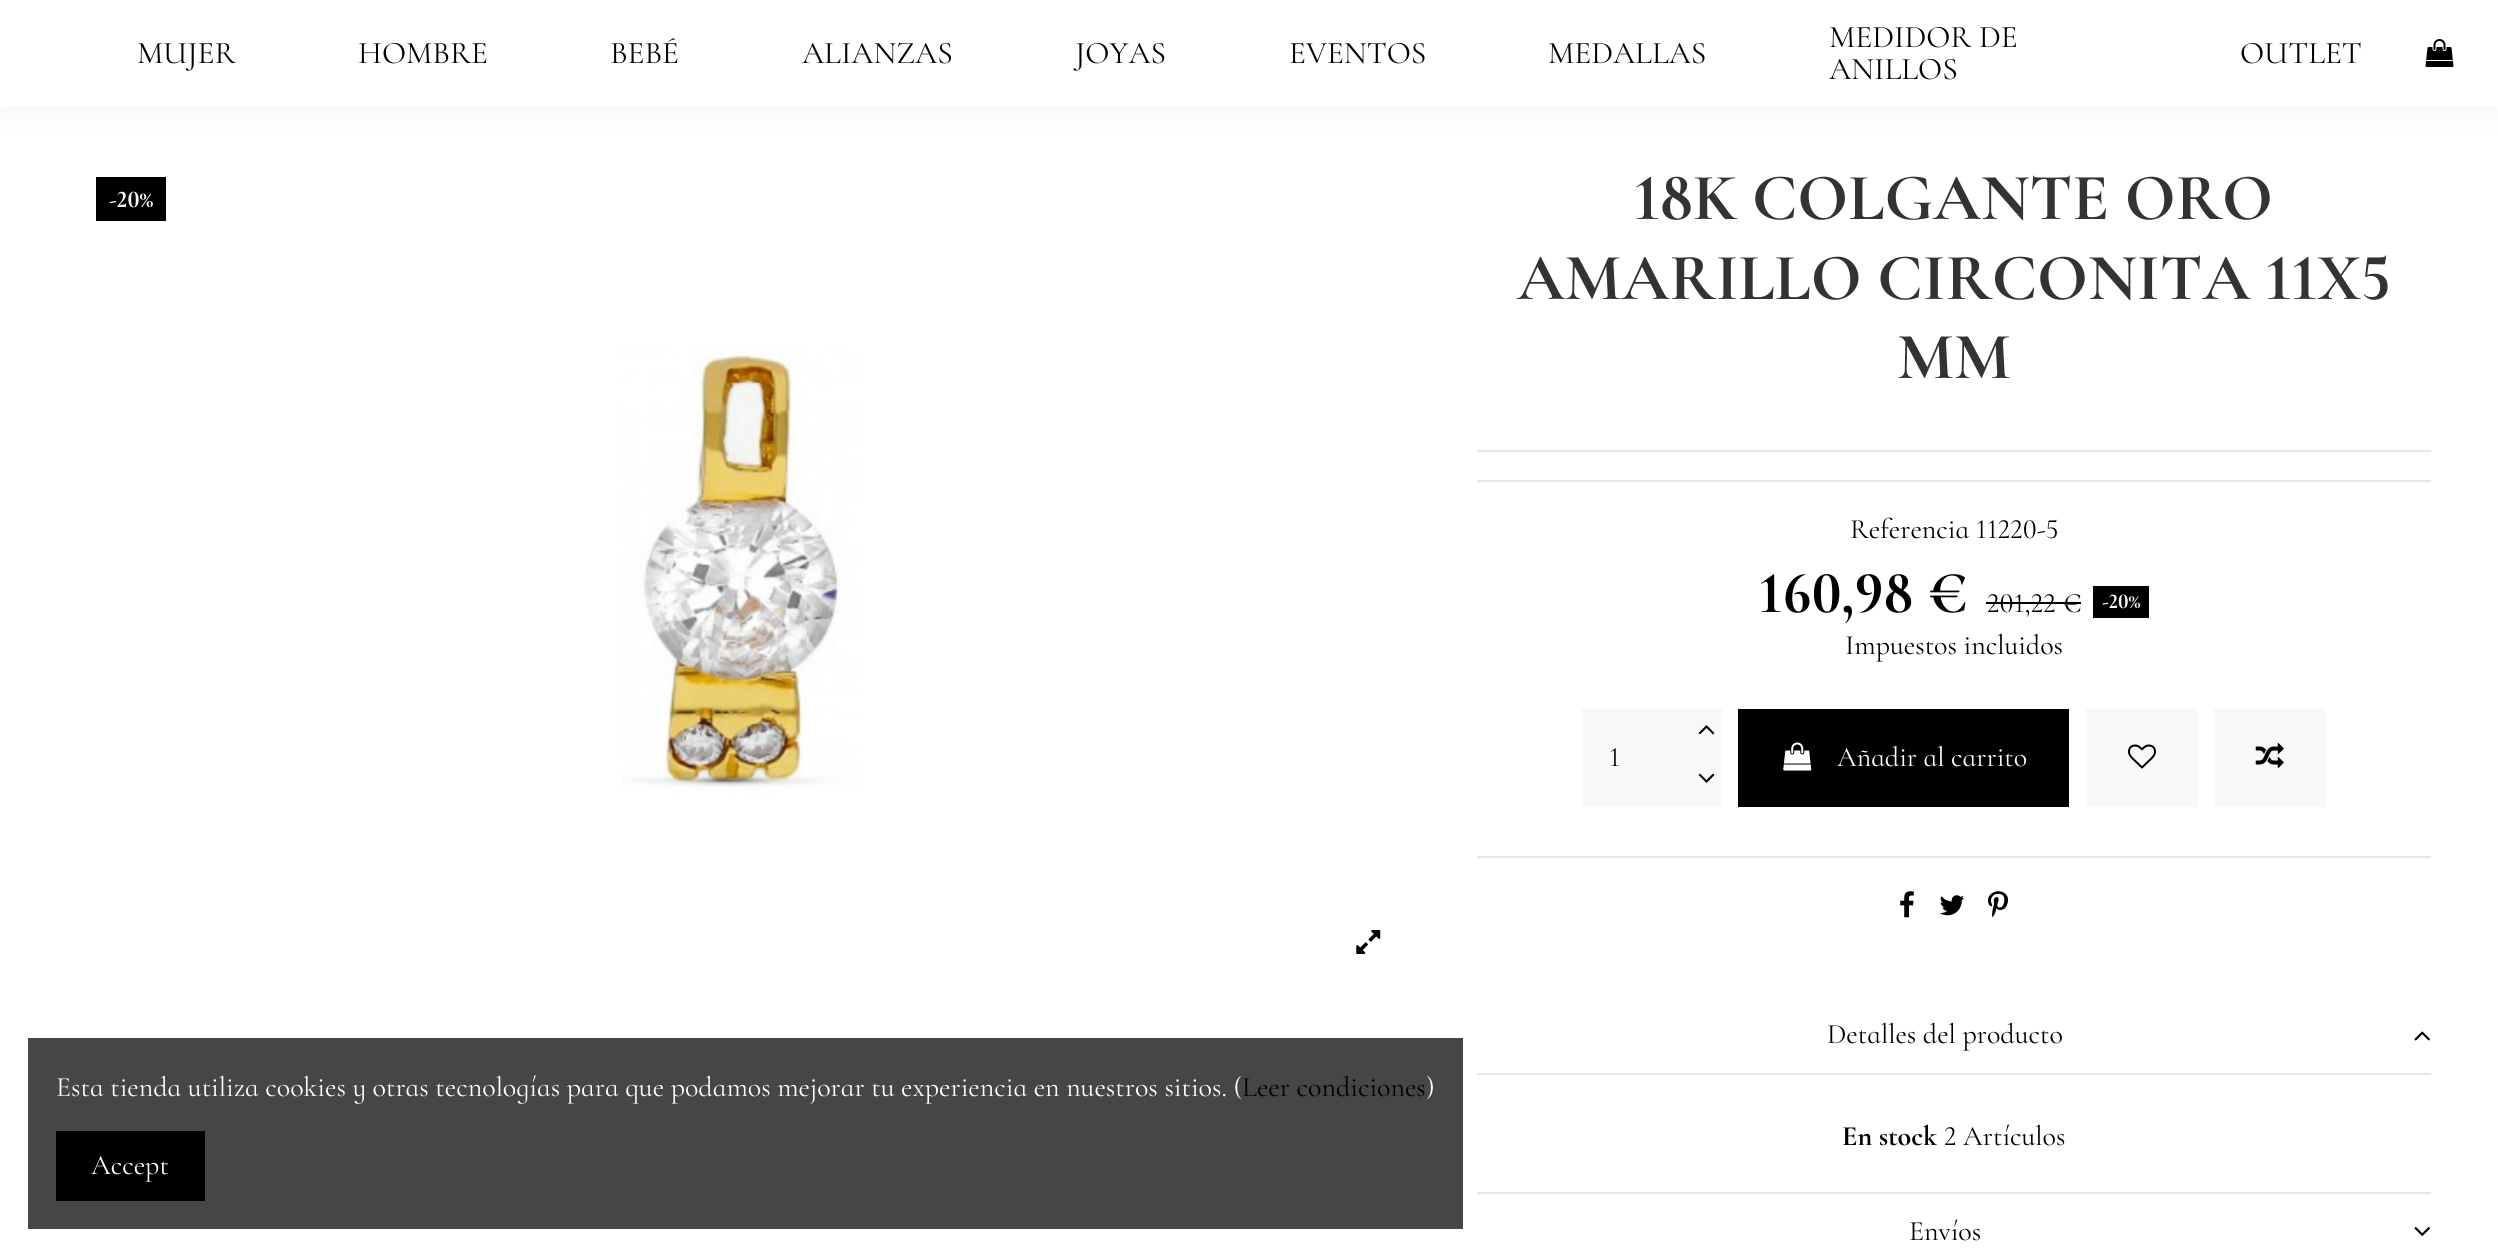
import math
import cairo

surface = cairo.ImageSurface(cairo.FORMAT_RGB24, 2498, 1256)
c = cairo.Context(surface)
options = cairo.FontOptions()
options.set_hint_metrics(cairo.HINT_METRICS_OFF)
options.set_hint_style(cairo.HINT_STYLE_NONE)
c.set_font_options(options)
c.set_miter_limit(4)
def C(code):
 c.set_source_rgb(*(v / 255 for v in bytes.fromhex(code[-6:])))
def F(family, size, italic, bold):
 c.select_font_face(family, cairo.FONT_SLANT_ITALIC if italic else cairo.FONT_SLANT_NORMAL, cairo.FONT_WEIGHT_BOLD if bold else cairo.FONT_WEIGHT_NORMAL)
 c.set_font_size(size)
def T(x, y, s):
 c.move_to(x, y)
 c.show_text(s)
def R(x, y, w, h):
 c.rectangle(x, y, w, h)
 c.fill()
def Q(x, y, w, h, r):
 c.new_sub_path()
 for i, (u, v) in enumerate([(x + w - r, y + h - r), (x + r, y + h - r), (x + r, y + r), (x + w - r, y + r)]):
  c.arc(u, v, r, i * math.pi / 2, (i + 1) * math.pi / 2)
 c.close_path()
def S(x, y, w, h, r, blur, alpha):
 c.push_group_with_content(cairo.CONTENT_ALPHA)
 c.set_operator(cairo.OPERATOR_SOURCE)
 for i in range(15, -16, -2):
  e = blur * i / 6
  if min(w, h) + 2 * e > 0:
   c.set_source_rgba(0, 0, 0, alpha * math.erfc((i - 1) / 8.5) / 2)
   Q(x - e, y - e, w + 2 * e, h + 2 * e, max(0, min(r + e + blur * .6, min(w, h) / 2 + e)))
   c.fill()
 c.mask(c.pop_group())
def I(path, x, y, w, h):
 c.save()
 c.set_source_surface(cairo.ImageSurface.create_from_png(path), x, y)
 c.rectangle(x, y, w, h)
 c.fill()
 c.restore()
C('ffffff')
c.paint()
C('000000')
S(0,0,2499,107,0,17.5,.05)
C('ffffff')
R(0,0,2498,107)
F('Cormorant Infant',31.5,0,0)
C('000000')
T(137,63,'MUJER')
T(358,63,'HOMBRE')
T(610,63,'BEBÉ')
T(802,63,'ALIANZAS')
T(1075,63,'JOYAS')
T(1289,63,'EVENTOS')
T(1548,63,'MEDALLAS')
T(1829,47,'MEDIDOR DE')
T(1829,79,'ANILLOS')
T(2240,63,'OUTLET')
I('1.png',2425,39,29,28)
R(96,177,70,44)
F('Cormorant Infant',24,0,1)
C('ffffff')
T(109,207,'-20%')
I('2.png',622,344,239,449)
I('3.png',1356,930,25,24)
C('e7e7e7')
R(1477,450,954,2)
F('Cormorant Infant',66.5,0,1)
C('333333')
T(1634,219,'18K COLGANTE ORO')
T(1517,299,'AMARILLO CIRCONITA 11X5')
T(1897,378,'MM')
C('e7e7e7')
R(1477,480,954,2)
F('Cormorant Infant',28,0,0)
C('000000')
T(1850,538,'Referencia 11220-5')
F('Cormorant Infant',59.5,0,1)
T(1759,612,'160,98 €')
F('Cormorant Infant',28,0,0)
T(1987,612,'201,22 €')
R(1986,602,95,2)
R(2093,586,56,32)
F('Cormorant Infant',21,0,1)
C('ffffff')
T(2102,608,'-20%')
F('Cormorant Infant',28,0,0)
C('000000')
T(1845,654,'Impuestos incluidos')
C('f8f8f8')
R(1582,709,105,98)
C('000000')
T(1609,766,'1')
C('f8f8f8')
R(1687,709,35,98)
I('4.png',1698,725,17,10)
I('5.png',1698,773,17,10)
C('000000')
R(1738,709,331,98)
I('6.png',1783,742,29,29)
C('ffffff')
T(1837,766,'Añadir al carrito')
C('f8f8f8')
R(2086,709,112,98)
I('7.png',2128,744,28,25)
R(2214,709,112,98)
I('8.png',2255,743,29,25)
C('e7e7e7')
R(1477,856,954,2)
I('9.png',1900,891,14,27)
I('10.png',1939,895,26,21)
I('11.png',1988,891,20,27)
R(1477,1073,954,2)
C('000000')
T(1827,1043,'Detalles del producto')
I('12.png',2414,1031,16,10)
C('e7e7e7')
R(1477,1192,954,2)
F('Cormorant Infant',28,0,1)
C('000000')
T(1842,1145,'En stock')
F('Cormorant Infant',28,0,0)
T(1944,1145,'2 Artículos')
T(1909,1240,'Envíos')
I('13.png',2414,1227,16,9)
C('464646')
R(28,1038,1435,191)
C('ffffff')
T(56,1096,'Esta tienda utiliza cookies y otras tecnologías para que podamos mejorar tu experiencia en nuestros sitios. (')
C('000000')
T(1242,1096,'Leer condiciones')
C('ffffff')
T(1426,1096,')')
C('000000')
R(56,1131,149,70)
C('ffffff')
T(91,1174,'Accept')
surface.write_to_png('o.png')
